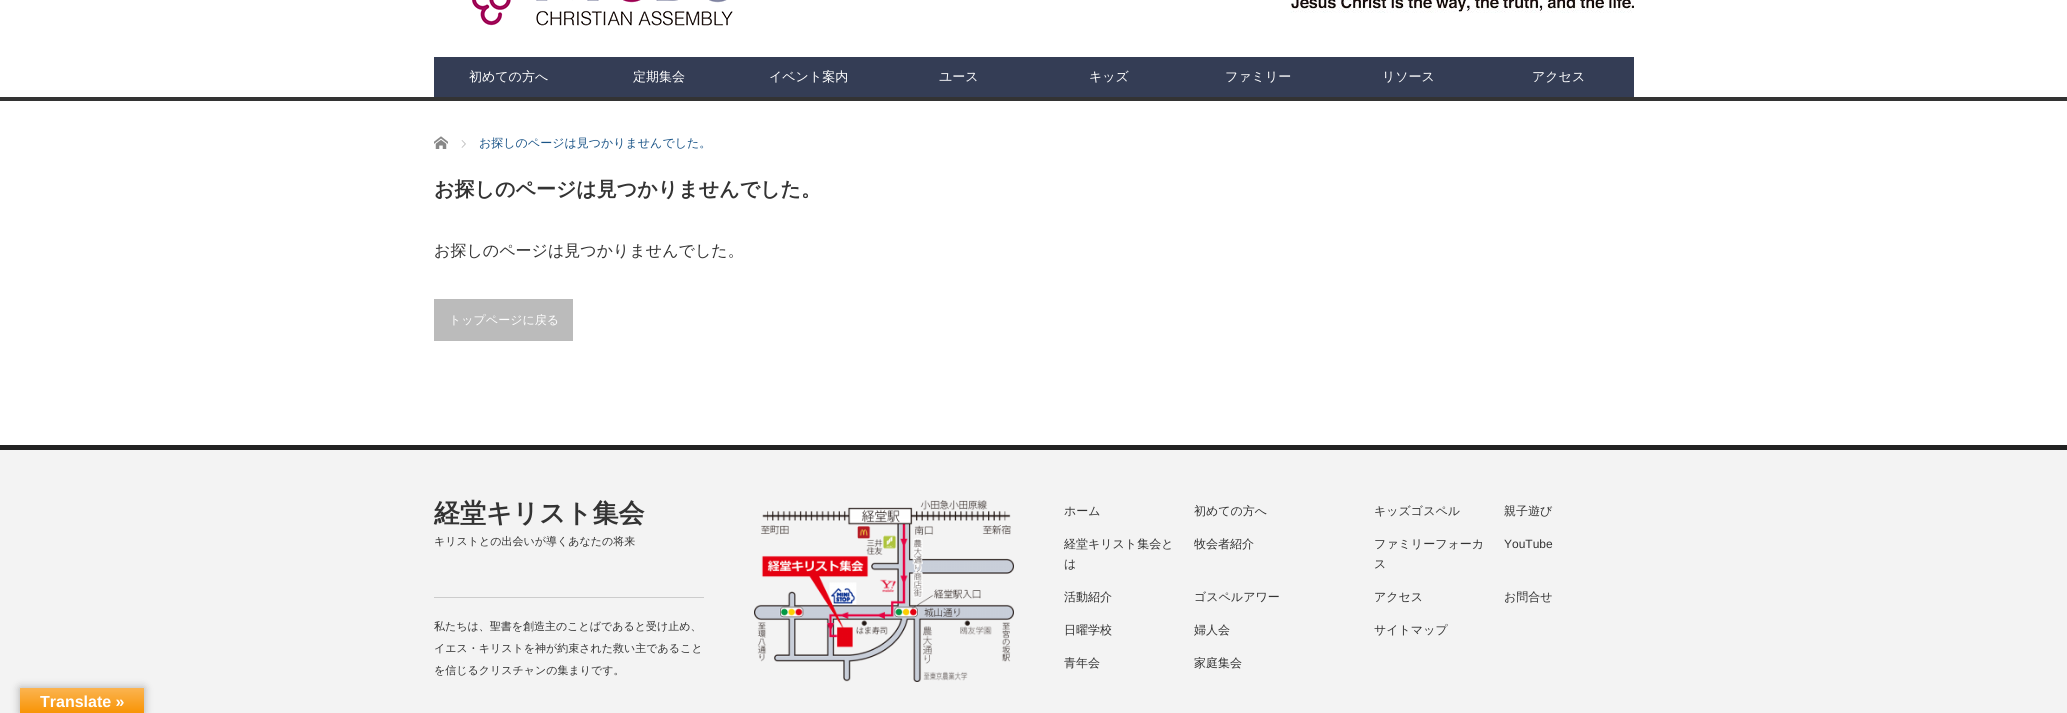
import math
import cairo

surface = cairo.ImageSurface(cairo.FORMAT_RGB24, 2067, 713)
c = cairo.Context(surface)
options = cairo.FontOptions()
options.set_hint_metrics(cairo.HINT_METRICS_OFF)
options.set_hint_style(cairo.HINT_STYLE_NONE)
c.set_font_options(options)
c.set_miter_limit(4)
def C(code):
 c.set_source_rgb(*(v / 255 for v in bytes.fromhex(code[-6:])))
def F(family, size, italic, bold):
 c.select_font_face(family, cairo.FONT_SLANT_ITALIC if italic else cairo.FONT_SLANT_NORMAL, cairo.FONT_WEIGHT_BOLD if bold else cairo.FONT_WEIGHT_NORMAL)
 c.set_font_size(size)
def T(x, y, s):
 c.move_to(x, y)
 c.show_text(s)
def R(x, y, w, h):
 c.rectangle(x, y, w, h)
 c.fill()
def Q(x, y, w, h, r):
 c.new_sub_path()
 for i, (u, v) in enumerate([(x + w - r, y + h - r), (x + r, y + h - r), (x + r, y + r), (x + w - r, y + r)]):
  c.arc(u, v, r, i * math.pi / 2, (i + 1) * math.pi / 2)
 c.close_path()
def S(x, y, w, h, r, blur, alpha):
 c.push_group_with_content(cairo.CONTENT_ALPHA)
 c.set_operator(cairo.OPERATOR_SOURCE)
 for i in range(15, -16, -2):
  e = blur * i / 6
  if min(w, h) + 2 * e > 0:
   c.set_source_rgba(0, 0, 0, alpha * math.erfc((i - 1) / 8.5) / 2)
   Q(x - e, y - e, w + 2 * e, h + 2 * e, max(0, min(r + e + blur * .6, min(w, h) / 2 + e)))
   c.fill()
 c.mask(c.pop_group())
def I(path, x, y, w, h):
 c.save()
 c.set_source_surface(cairo.ImageSurface.create_from_png(path), x, y)
 c.rectangle(x, y, w, h)
 c.fill()
 c.restore()
C('ffffff')
c.paint()
C('333333')
R(0,97,2067,4)
I('1.png',472,0,261,26)
I('2.png',1290,0,344,13)
C('343d55')
R(434,57,1200,40)
F('WenQuanYi Zen Hei Medium',13,0,0)
C('ffffff')
T(469,81,'初めての方へ')
T(633,81,'定期集会')
T(769,81,'イベント案内')
T(939,81,'ユース')
T(1089,81,'キッズ')
T(1225,81,'ファミリー')
T(1382,81,'リソース')
T(1532,81,'アクセス')
I('3.png',434,136,14,13)
I('4.png',461,140,5,8)
F('WenQuanYi Zen Hei Medium',12,0,0)
C('1a5487')
T(479,147,'お探しのページは見つかりませんでした。')
F('WenQuanYi Zen Hei',20,0,1)
C('333333')
T(434,196,'お探しのページは見つかりませんでした。')
F('WenQuanYi Zen Hei Medium',16,0,0)
T(434,256,'お探しのページは見つかりませんでした。')
C('bbbbbb')
R(434,299,139,42)
F('WenQuanYi Zen Hei Medium',12,0,0)
C('ffffff')
T(449,324,'トップページに戻る')
C('f3f3f3')
R(0,450,2067,263)
C('222222')
R(0,445,2067,5)
F('WenQuanYi Zen Hei',26,0,1)
C('333333')
T(434,522,'経堂キリスト集会')
F('WenQuanYi Zen Hei Medium',11,0,0)
T(434,545,'キリストとの出会いが導くあなたの将来')
C('cccccc')
R(434,597,270,1)
C('333333')
T(434,630,'私たちは、聖書を創造主のことばであると受け止め、')
T(434,652,'イエス・キリストを神が約束された救い主であること')
T(434,674,'を信じるクリスチャンの集まりです。')
I('5.png',754,500,260,182)
F('WenQuanYi Zen Hei Medium',12,0,0)
T(1064,515,'ホーム')
T(1194,515,'初めての方へ')
T(1064,548,'経堂キリスト集会と')
T(1064,568,'は')
T(1194,548,'牧会者紹介')
T(1064,601,'活動紹介')
T(1194,601,'ゴスペルアワー')
T(1064,634,'日曜学校')
T(1194,634,'婦人会')
T(1064,667,'青年会')
T(1194,667,'家庭集会')
T(1374,515,'キッズゴスペル')
T(1504,515,'親子遊び')
T(1374,548,'ファミリーフォーカ')
T(1374,568,'ス')
F('Liberation Sans',12,0,0)
T(1504,548,'YouTube')
F('WenQuanYi Zen Hei Medium',12,0,0)
T(1374,601,'アクセス')
T(1504,601,'お問合せ')
T(1374,634,'サイトマップ')
C('000000')
S(20,688,124,25,0,4.5,.3)
gradient = cairo.LinearGradient(82,688,82,713)
gradient.add_color_stop_rgba(0,0.984,0.706,0.314,1)
gradient.add_color_stop_rgba(1,0.973,0.58,0.024,1)
c.set_source(gradient)
R(20,688,124,25)
F('Liberation Sans',16,0,1)
C('ffffff')
T(40,707,'Translate »')
surface.write_to_png('o.png')
